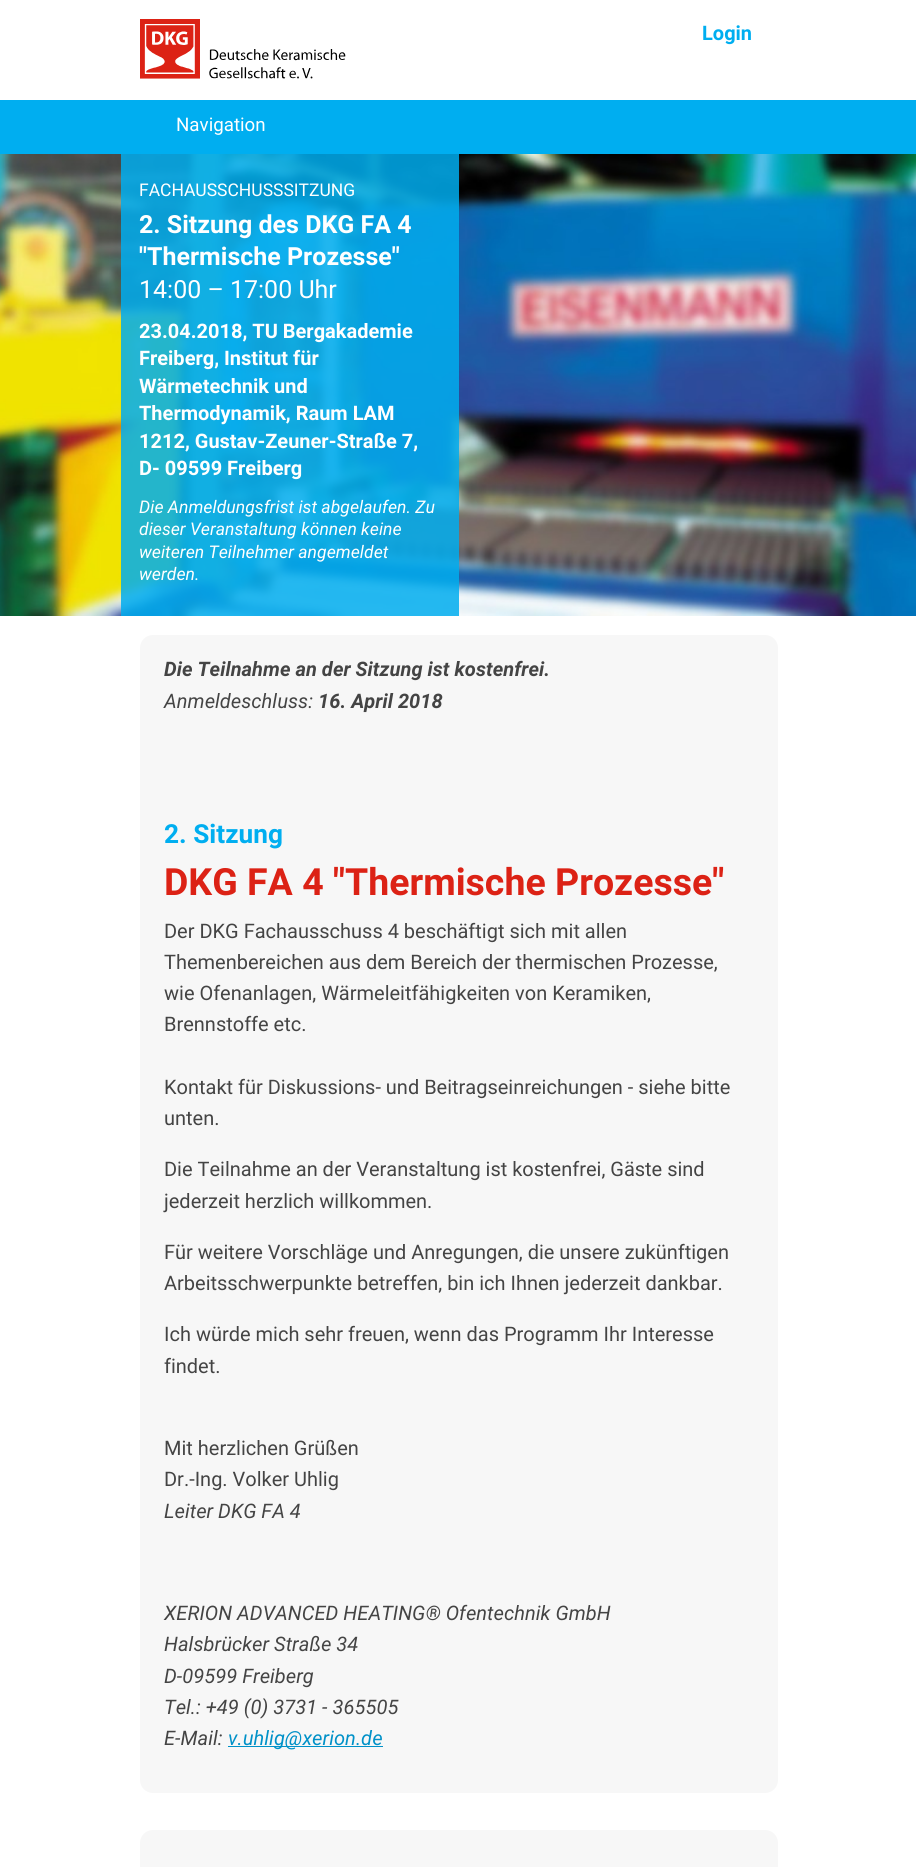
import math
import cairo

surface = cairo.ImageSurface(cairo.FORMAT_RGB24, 916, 1867)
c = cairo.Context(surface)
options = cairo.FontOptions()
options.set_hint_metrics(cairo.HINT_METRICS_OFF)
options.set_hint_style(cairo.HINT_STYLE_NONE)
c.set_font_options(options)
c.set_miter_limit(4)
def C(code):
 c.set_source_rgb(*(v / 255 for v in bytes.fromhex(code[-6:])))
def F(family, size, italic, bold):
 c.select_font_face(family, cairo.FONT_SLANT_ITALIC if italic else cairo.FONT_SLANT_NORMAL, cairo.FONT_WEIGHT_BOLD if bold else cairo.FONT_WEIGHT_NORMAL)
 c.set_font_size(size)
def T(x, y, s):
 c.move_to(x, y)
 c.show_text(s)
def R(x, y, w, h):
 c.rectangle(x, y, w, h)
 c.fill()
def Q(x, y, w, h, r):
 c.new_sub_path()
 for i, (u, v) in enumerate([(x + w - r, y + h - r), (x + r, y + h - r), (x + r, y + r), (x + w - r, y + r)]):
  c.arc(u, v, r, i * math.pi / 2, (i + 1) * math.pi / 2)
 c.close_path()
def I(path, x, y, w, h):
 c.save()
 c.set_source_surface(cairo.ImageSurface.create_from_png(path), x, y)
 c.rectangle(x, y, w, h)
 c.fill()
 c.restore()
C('ffffff')
c.paint()
I('1.png',140,19,206,60)
F('Roboto',20,0,1)
C('00aef0')
T(702,40,'Login')
R(0,100,916,54)
F('Roboto',18.75,0,0)
C('ffffff')
T(176,131,'Navigation')
I('2.png',0,154,916,462)
c.set_source_rgba(0,0.678,0.937,0.85)
R(121,154,338,462)
F('Roboto',17.5,0,0)
C('ffffff')
T(139,196,'FACHAUSSCHUSSSITZUNG')
F('Roboto',25,0,1)
T(139,233,'2. Sitzung des DKG FA 4')
T(139,265,'"Thermische Prozesse"')
F('Roboto',25,0,0)
T(139,298,'14:00 – 17:00 Uhr')
F('Roboto',20,0,1)
T(139,338,'23.04.2018, TU Bergakademie')
T(139,365,'Freiberg, Institut für')
T(139,393,'Wärmetechnik und')
T(139,420,'Thermodynamik, Raum LAM')
T(139,448,'1212, Gustav-Zeuner-Straße 7,')
T(139,475,'D- 09599 Freiberg')
F('Roboto',17.5,1,0)
T(139,513,'Die Anmeldungsfrist ist abgelaufen. Zu')
T(139,535,'dieser Veranstaltung können keine')
T(139,558,'weiteren Teilnehmer angemeldet')
T(139,580,'werden.')
C('f7f7f7')
Q(140,635,638,1158,13)
c.fill()
F('Roboto',20,1,1)
C('444444')
T(164,676,'Die Teilnahme an der Sitzung ist kostenfrei.')
F('Roboto',20,1,0)
T(164,708,'Anmeldeschluss:')
F('Roboto',20,1,1)
T(318,708,'16. April 2018')
F('Roboto',26.25,0,1)
C('00aef0')
T(164,843,'2. Sitzung')
F('Roboto',37.5,0,1)
C('dc2215')
T(164,895,'DKG FA 4 "Thermische Prozesse"')
F('Roboto',20,0,0)
C('444444')
T(164,938,'Der DKG Fachausschuss 4 beschäftigt sich mit allen')
T(164,969,'Themenbereichen aus dem Bereich der thermischen Prozesse,')
T(164,1000,'wie Ofenanlagen, Wärmeleitfähigkeiten von Keramiken,')
T(164,1031,'Brennstoffe etc.')
T(164,1094,'Kontakt für Diskussions- und Beitragseinreichungen - siehe bitte')
T(164,1125,'unten.')
T(164,1176,'Die Teilnahme an der Veranstaltung ist kostenfrei, Gäste sind')
T(164,1208,'jederzeit herzlich willkommen.')
T(164,1259,'Für weitere Vorschläge und Anregungen, die unsere zukünftigen')
T(164,1290,'Arbeitsschwerpunkte betreffen, bin ich Ihnen jederzeit dankbar.')
T(164,1341,'Ich würde mich sehr freuen, wenn das Programm Ihr Interesse')
T(164,1373,'findet.')
T(164,1455,'Mit herzlichen Grüßen')
T(164,1486,'Dr.-Ing. Volker Uhlig')
F('Roboto',20,1,0)
T(164,1518,'Leiter DKG FA 4')
T(164,1620,'XERION ADVANCED HEATING® Ofentechnik GmbH')
T(164,1651,'Halsbrücker Straße 34')
T(164,1683,'D-09599 Freiberg')
T(164,1714,'Tel.: +49 (0) 3731 - 365505')
T(164,1745,'E-Mail:')
C('0091c8')
R(228,1746,155,1)
T(228,1745,'v.uhlig@xerion.de')
C('f7f7f7')
Q(140,1830,638,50,13)
c.fill()
surface.write_to_png('o.png')
